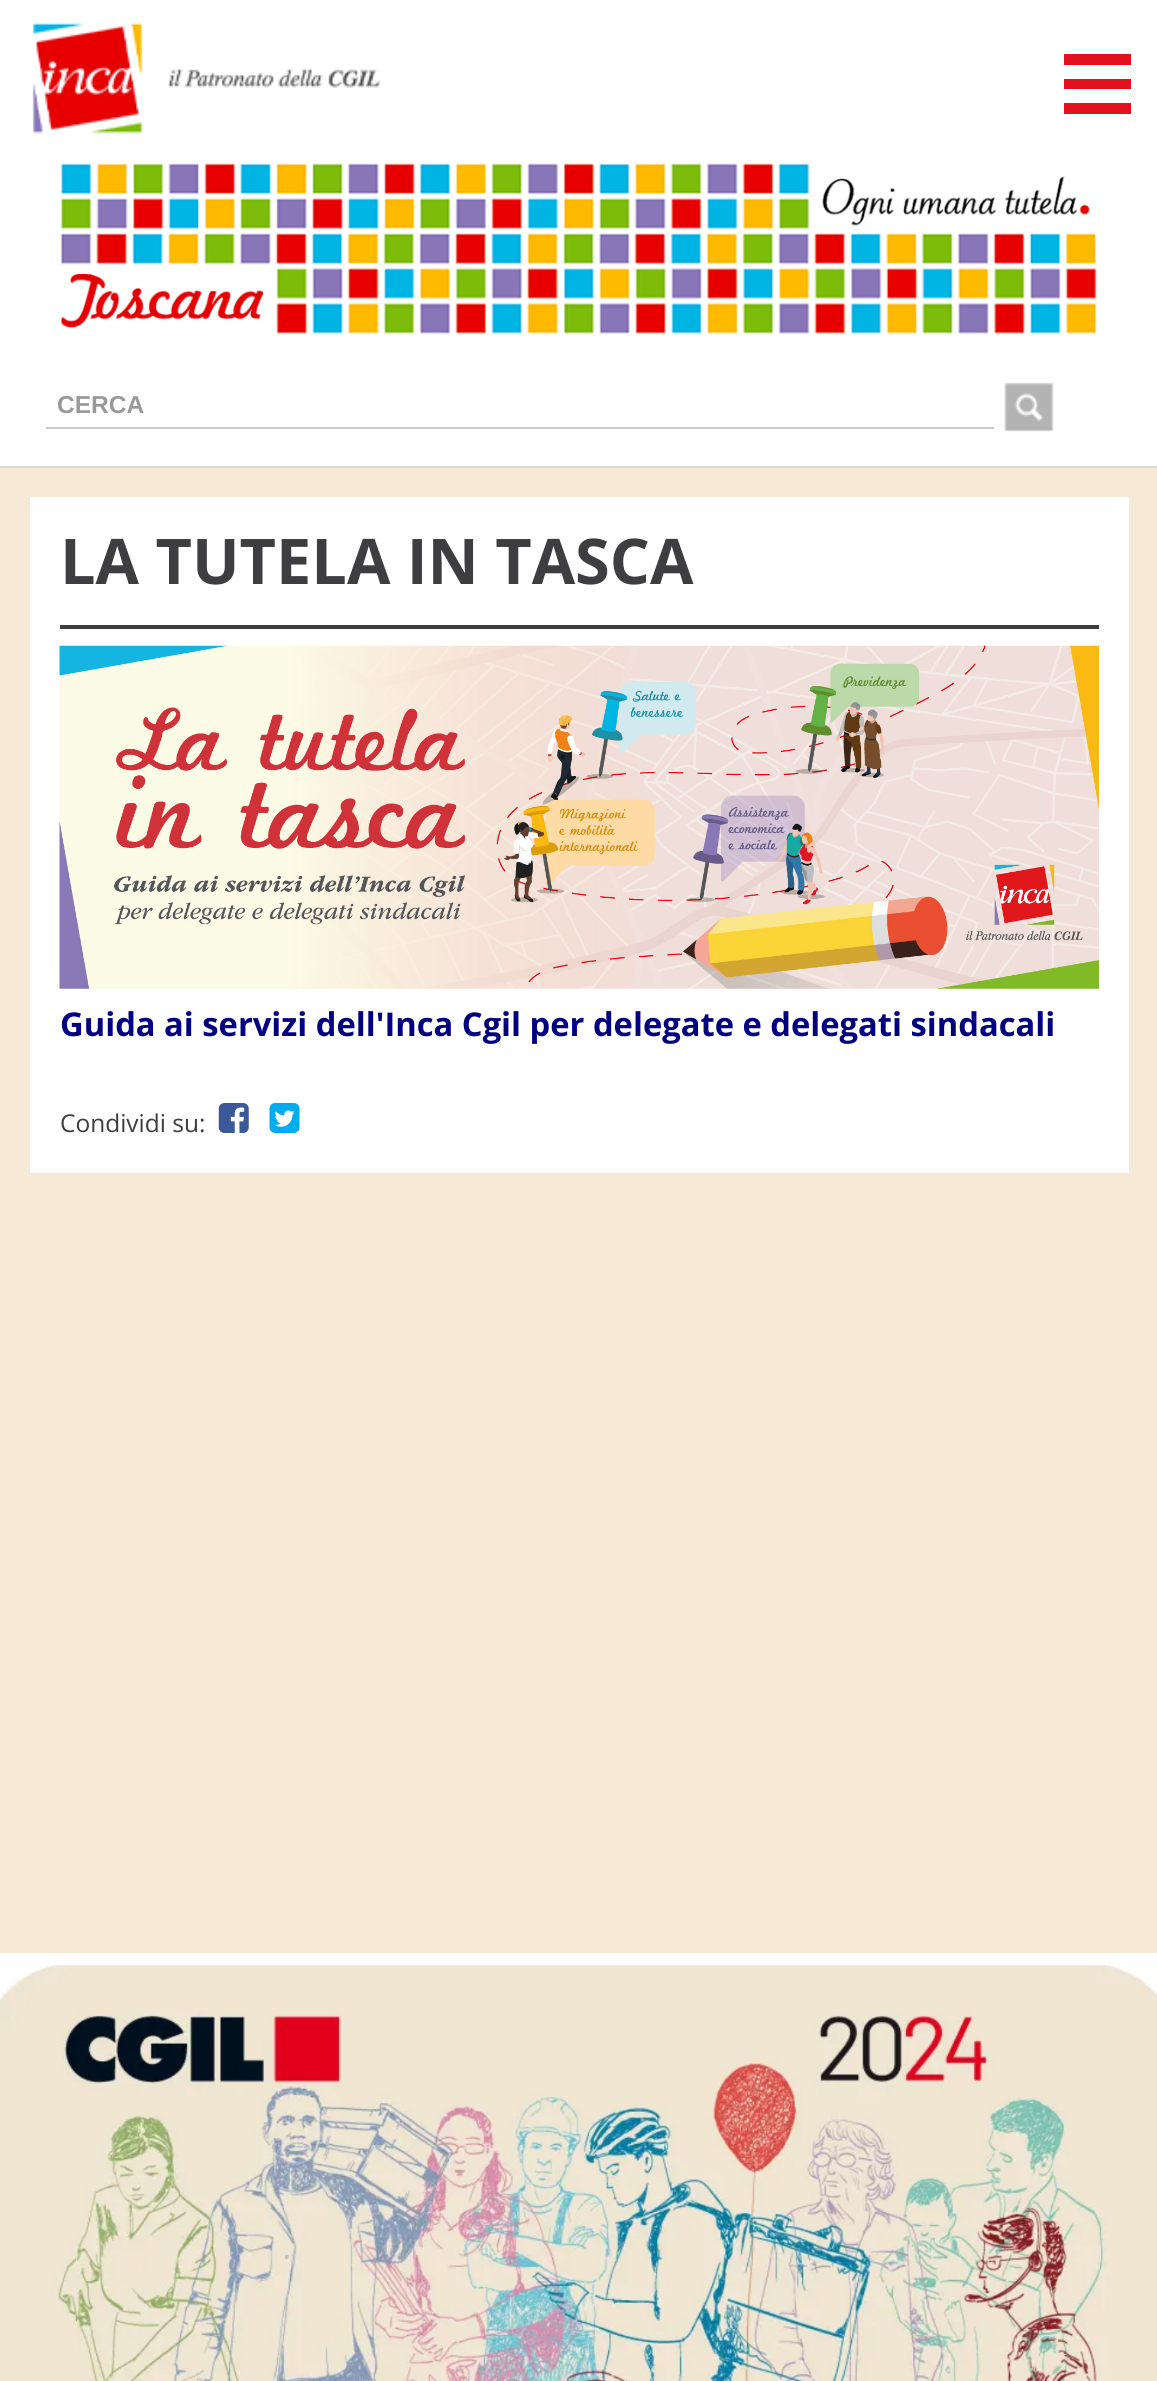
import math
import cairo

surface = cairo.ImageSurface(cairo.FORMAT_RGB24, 1157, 2381)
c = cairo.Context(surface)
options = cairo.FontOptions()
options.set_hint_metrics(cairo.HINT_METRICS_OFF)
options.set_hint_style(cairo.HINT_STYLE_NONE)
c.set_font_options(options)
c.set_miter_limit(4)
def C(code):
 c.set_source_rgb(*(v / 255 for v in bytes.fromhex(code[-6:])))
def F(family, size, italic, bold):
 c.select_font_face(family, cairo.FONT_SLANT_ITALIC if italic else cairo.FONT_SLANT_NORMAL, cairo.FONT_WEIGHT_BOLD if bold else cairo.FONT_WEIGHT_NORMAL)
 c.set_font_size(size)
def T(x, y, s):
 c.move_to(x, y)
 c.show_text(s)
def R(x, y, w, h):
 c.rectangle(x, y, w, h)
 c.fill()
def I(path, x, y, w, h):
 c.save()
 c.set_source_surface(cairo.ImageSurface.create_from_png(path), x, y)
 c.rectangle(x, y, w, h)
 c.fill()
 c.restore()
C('ffffff')
c.paint()
I('1.png',32,22,349,112)
C('e1111e')
R(1064,54,67,11)
R(1064,79,67,10)
R(1064,103,67,11)
I('2.png',60,163,1037,172)
C('cccccc')
R(46,427,948,2)
F('Liberation Sans',24.5,0,1)
C('999999')
T(57,413,'CERCA')
I('3.png',1004,382,50,50)
C('d9dadb')
R(0,466,1157,2)
C('f6ead7')
R(0,468,1157,1485)
C('ffffff')
R(30,497,1099,676)
C('3e3d40')
R(60,625,1039,4)
F('Open Sans',63,0,1)
T(60,584,'LA TUTELA IN TASCA')
I('4.png',59,645,1040,344)
F('Open Sans',32.7,0,1)
C('000080')
T(60,1036,'Guida ai servizi dell\'Inca Cgil per delegate e delegati sindacali')
F('Open Sans',24.5,0,0)
C('3e3d40')
T(60,1132,'Condividi su:')
I('5.png',218,1103,31,30)
I('6.png',269,1103,31,30)
I('7.png',0,1965,1157,416)
surface.write_to_png('o.png')
